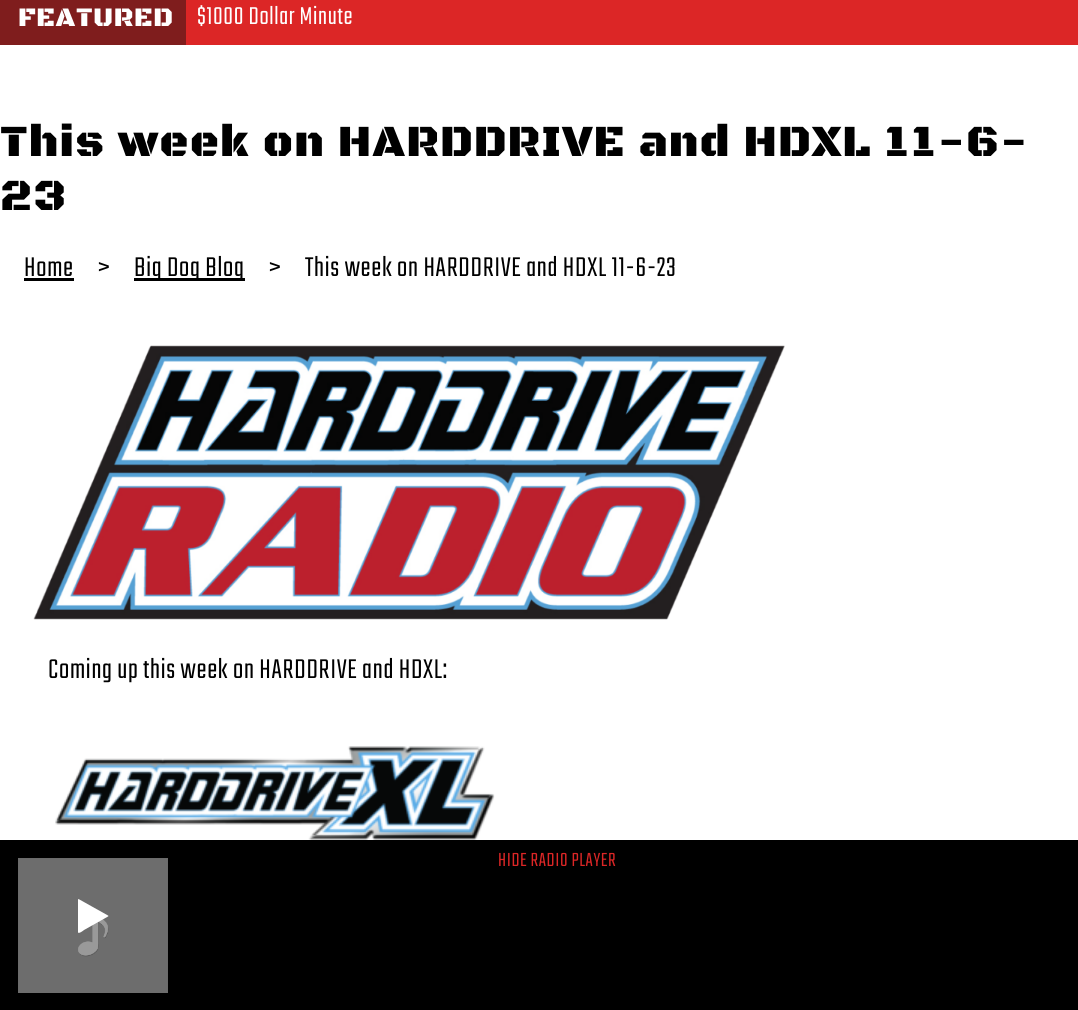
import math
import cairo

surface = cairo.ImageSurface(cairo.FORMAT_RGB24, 1078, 1010)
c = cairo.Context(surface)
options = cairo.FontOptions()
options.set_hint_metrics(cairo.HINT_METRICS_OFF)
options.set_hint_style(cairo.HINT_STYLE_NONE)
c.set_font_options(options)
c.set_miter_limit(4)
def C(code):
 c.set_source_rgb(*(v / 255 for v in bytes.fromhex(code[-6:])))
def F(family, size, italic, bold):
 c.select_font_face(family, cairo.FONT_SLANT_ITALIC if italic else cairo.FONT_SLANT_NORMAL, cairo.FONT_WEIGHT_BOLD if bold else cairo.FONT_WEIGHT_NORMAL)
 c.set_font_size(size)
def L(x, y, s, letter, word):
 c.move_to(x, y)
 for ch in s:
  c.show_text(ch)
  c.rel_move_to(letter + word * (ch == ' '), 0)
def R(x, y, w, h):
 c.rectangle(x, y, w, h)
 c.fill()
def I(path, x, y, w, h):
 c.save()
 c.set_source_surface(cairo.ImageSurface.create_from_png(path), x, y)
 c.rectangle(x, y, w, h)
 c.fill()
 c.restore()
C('ffffff')
c.paint()
C('dc2626')
R(186,0,892,45)
C('7f1d1d')
R(0,0,186,45)
F('Black Ops One Black',27,0,0)
C('ffffff')
L(18,26,'FEATURED',.7,0)
F('Teko Light',27,0,0)
L(197,24,'$1000 Dollar Minute',.7,0)
F('Black Ops One Black',45,0,0)
C('000000')
L(0,156,'This week on HARDDRIVE and HDXL 11-6-',1.1,0)
L(0,210,'23',1.1,0)
F('Teko Light',30,0,0)
L(24,276,'Home',.75,0)
R(24,278,50,3)
L(98,276,'>',.75,0)
R(134,278,111,3)
L(134,276,'Big Dog Blog',.75,0)
L(269,276,'>',.75,0)
L(305,276,'This week on HARDDRIVE and HDXL 11-6-23',.75,0)
I('1.png',33,345,752,275)
L(48,678,'Coming up this week on HARDDRIVE and HDXL:',.75,0)
I('2.png',55,746,440,94)
R(0,840,1078,170)
I('3.png',18,858,150,135)
c.set_source_rgba(0,0,0,0.4)
R(18,858,150,135)
C('ffffff')
c.new_path()
c.move_to(108,916.5)
c.line_to(84,930)
c.curve_to(83.5,930.5,79,934,78,932.5)
c.line_to(78,899.5)
c.line_to(78.5,899)
c.line_to(108,915.5)
c.line_to(108.5,916)
c.close_path()
c.fill()
F('Teko Light',21,0,0)
C('dc2626')
L(498,866,'HIDE RADIO PLAYER',.6,0)
surface.write_to_png('o.png')
